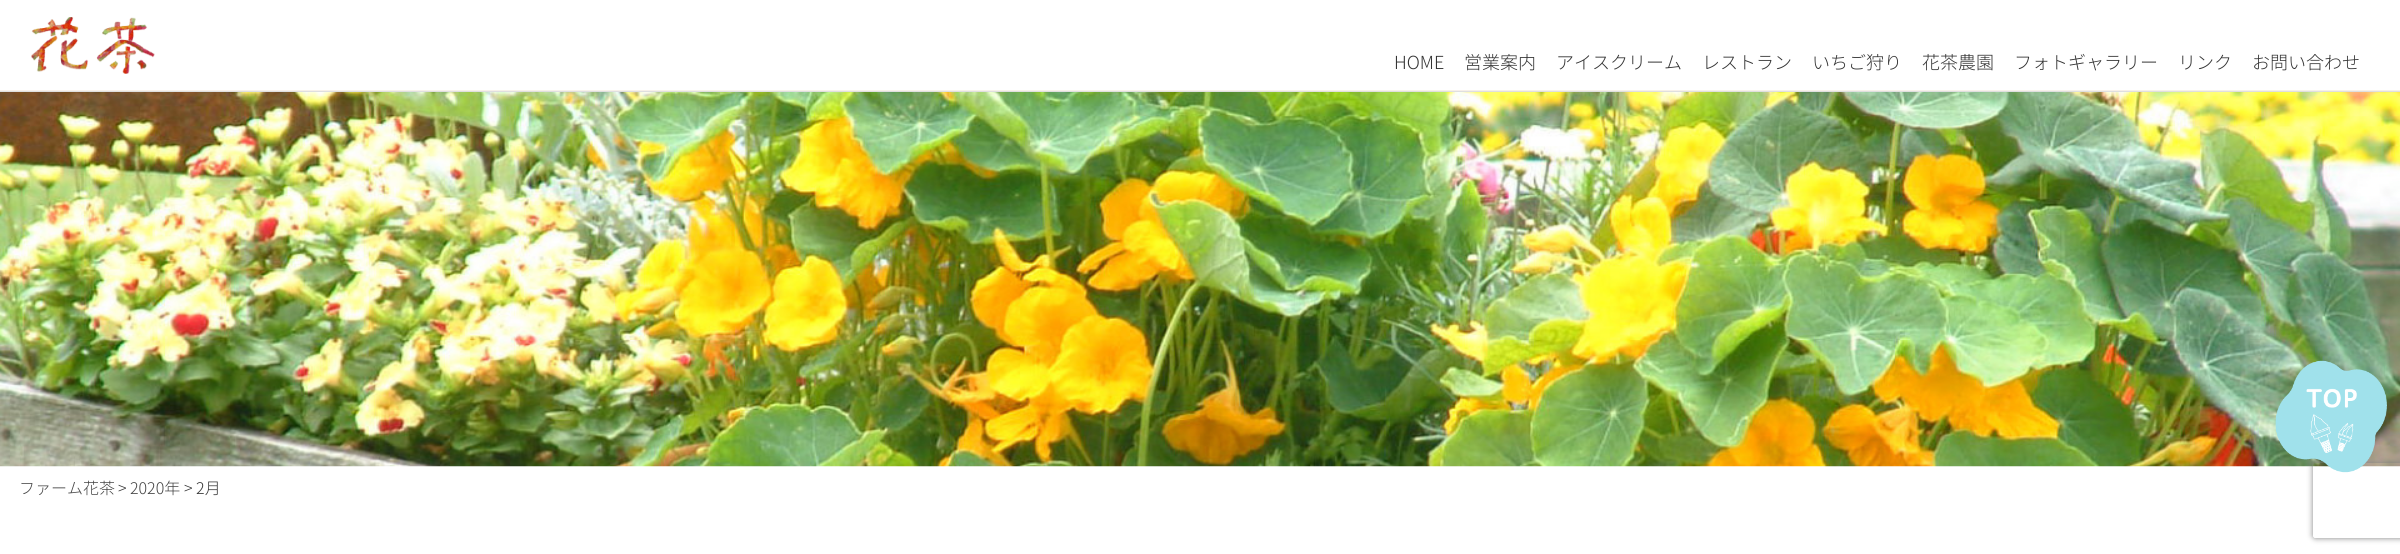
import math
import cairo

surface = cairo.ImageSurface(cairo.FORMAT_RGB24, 2400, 554)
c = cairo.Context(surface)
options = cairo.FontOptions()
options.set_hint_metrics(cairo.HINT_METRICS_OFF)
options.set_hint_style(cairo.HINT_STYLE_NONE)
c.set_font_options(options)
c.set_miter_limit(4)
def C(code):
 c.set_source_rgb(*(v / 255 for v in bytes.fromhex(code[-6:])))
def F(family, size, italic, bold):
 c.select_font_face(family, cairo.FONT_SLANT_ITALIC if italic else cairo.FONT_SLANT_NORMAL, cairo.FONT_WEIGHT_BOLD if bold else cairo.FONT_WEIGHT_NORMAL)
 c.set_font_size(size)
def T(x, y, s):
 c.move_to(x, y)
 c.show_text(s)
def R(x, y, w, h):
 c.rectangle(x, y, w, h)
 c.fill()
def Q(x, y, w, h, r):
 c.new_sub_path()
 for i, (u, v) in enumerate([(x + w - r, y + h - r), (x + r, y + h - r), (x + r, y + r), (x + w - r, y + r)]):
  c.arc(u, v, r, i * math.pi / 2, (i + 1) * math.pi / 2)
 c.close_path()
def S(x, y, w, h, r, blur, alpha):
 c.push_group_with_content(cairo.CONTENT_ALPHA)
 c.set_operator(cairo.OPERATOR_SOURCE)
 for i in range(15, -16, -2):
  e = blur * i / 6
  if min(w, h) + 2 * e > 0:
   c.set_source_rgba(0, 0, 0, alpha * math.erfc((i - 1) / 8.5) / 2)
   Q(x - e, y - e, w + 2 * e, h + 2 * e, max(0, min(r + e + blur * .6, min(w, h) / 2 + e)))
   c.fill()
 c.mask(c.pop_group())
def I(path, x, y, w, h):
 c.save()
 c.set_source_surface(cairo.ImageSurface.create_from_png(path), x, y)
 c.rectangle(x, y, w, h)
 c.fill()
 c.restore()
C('ffffff')
c.paint()
C('dfdfdf')
R(0,91,2400,1)
C('f7f0e9')
R(0,90,2400,1)
I('1.png',31,17,124,57)
F('Noto Sans JP Light',18,0,0)
C('333333')
T(1394,69,'HOME')
T(1464,69,'営業案内')
T(1556,69,'アイスクリーム')
T(1702,69,'レストラン')
T(1812,69,'いちご狩り')
T(1922,69,'花茶農園')
T(2014,69,'フォトギャラリー')
T(2178,69,'リンク')
T(2252,69,'お問い合わせ')
I('3.png',0,92,2400,375)
c.save()
c.set_fill_rule(cairo.FILL_RULE_EVEN_ODD)
c.new_path()
c.move_to(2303,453)
c.line_to(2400,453)
c.line_to(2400,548)
c.line_to(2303,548)
c.close_path()
c.move_to(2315.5,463)
c.line_to(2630.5,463)
c.curve_to(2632,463,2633,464,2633,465.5)
c.line_to(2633,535.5)
c.curve_to(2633,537,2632,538,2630.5,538)
c.line_to(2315.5,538)
c.curve_to(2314,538,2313,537,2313,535.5)
c.line_to(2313,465.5)
c.curve_to(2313,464,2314,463,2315.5,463)
c.close_path()
c.clip()
C('808080')
S(2313,463,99,75,2.5,3,1)
c.restore()
I('2.png',2275,360,112,113)
F('Noto Sans JP Light',16,0,0)
C('444444')
T(19,494,'ファーム花茶')
C('333333')
T(118,494,'>')
C('444444')
T(130,494,'2020年')
C('333333')
T(184,494,'> 2月')
surface.write_to_png('o.png')
